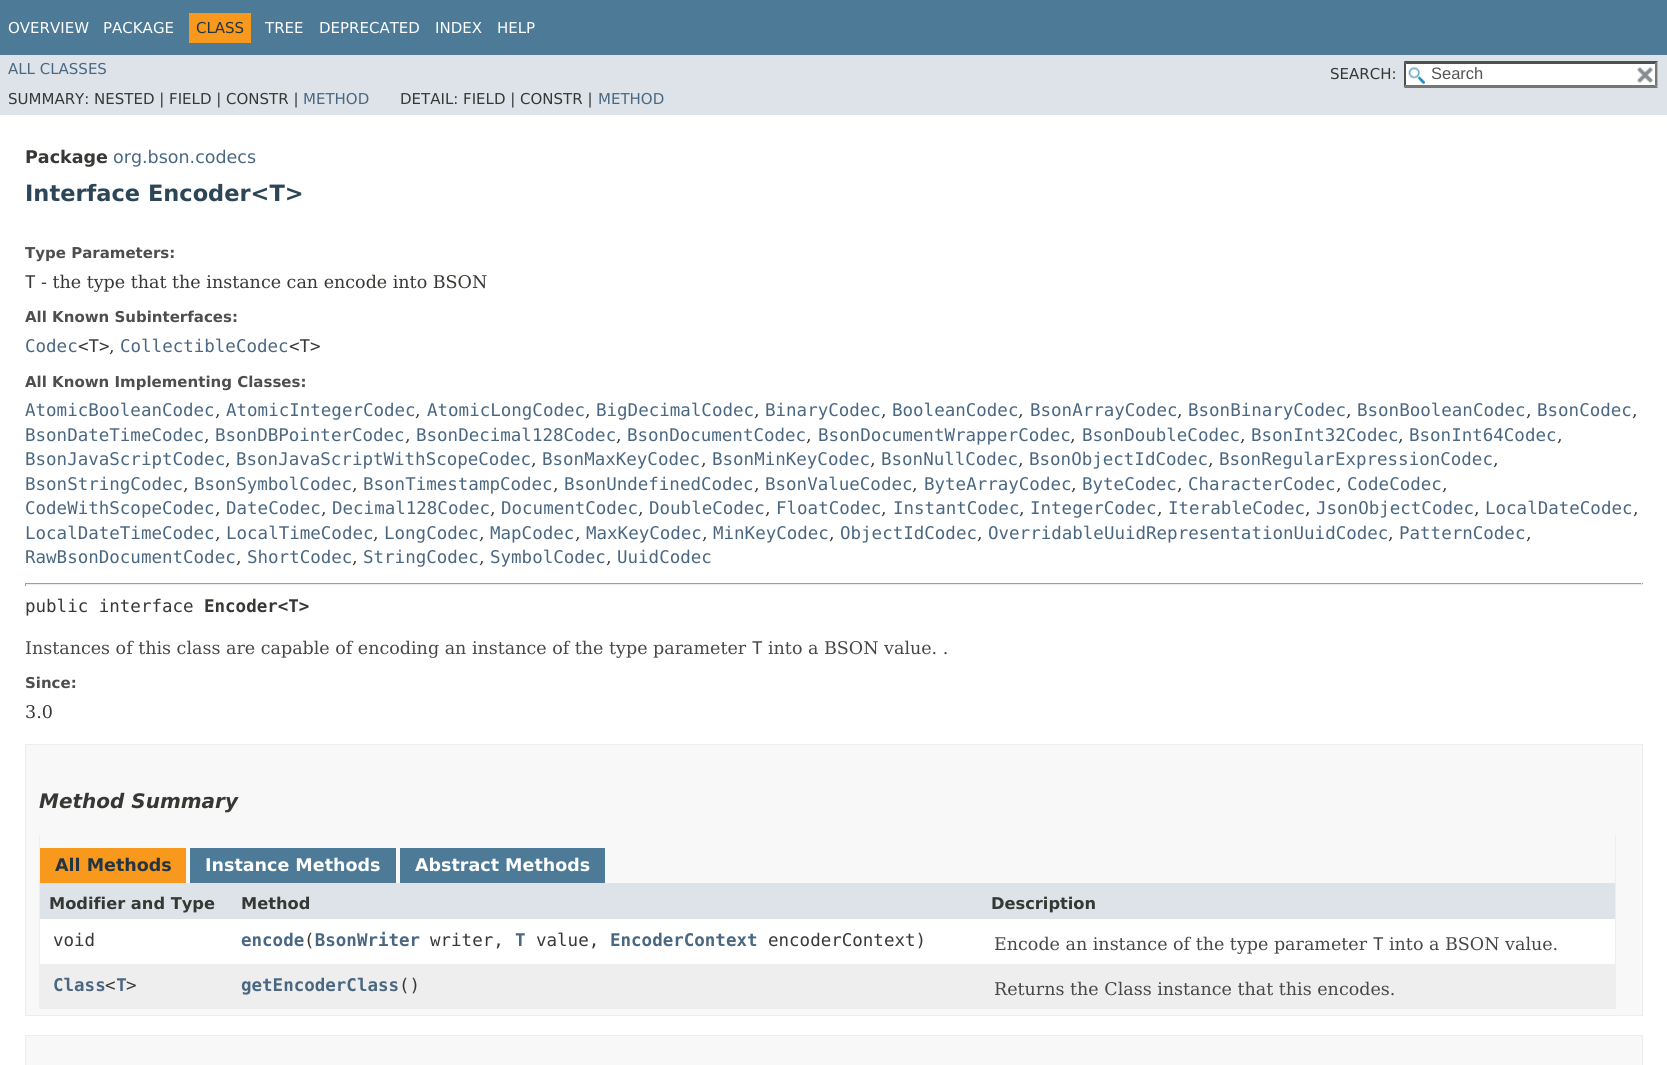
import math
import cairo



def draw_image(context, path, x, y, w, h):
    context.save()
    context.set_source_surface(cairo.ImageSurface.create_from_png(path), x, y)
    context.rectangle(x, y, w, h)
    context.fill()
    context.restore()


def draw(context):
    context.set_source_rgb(1, 1, 1)
    context.paint()
    context.set_source_rgb(77 / 255, 122 / 255, 151 / 255)
    context.rectangle(0, 0, 1667, 55)
    context.fill()
    context.set_source_rgb(248 / 255, 152 / 255, 29 / 255)
    context.rectangle(189, 13, 62, 30)
    context.fill()
    context.set_source_rgb(222 / 255, 227 / 255, 233 / 255)
    context.rectangle(0, 55, 1667, 60)
    context.fill()
    context.set_source_rgb(1, 1, 1)
    context.rectangle(1404, 61, 254, 27)
    context.fill()
    draw_image(context, "images/1.png", 1408, 67, 17, 17)
    context.set_source_rgb(79 / 255, 79 / 255, 79 / 255)
    context.new_path()
    context.move_to(1404, 61)
    context.line_to(1658, 61)
    context.line_to(1655, 64)
    context.line_to(1406, 64)
    context.close_path()
    context.fill()
    context.set_source_rgb(118 / 255, 118 / 255, 118 / 255)
    context.new_path()
    context.move_to(1657.5, 61)
    context.line_to(1657.5, 87.5)
    context.line_to(1655, 85)
    context.line_to(1655, 64)
    context.close_path()
    context.fill()
    context.new_path()
    context.move_to(1658, 88)
    context.line_to(1404, 88)
    context.line_to(1406, 85)
    context.line_to(1655, 85)
    context.close_path()
    context.fill()
    context.set_source_rgb(79 / 255, 79 / 255, 79 / 255)
    context.new_path()
    context.move_to(1404, 87.5)
    context.line_to(1404, 61)
    context.line_to(1406, 64)
    context.line_to(1406, 85)
    context.close_path()
    context.fill()
    draw_image(context, "images/2.png", 1637, 67, 16, 16)
    context.set_source_rgb(159 / 255, 159 / 255, 159 / 255)
    context.rectangle(25, 583, 1618, 1)
    context.fill()
    context.set_source_rgb(238 / 255, 238 / 255, 238 / 255)
    context.rectangle(1641, 583, 1, 3)
    context.fill()
    context.rectangle(25, 584, 1618, 1)
    context.fill()
    context.set_source_rgb(159 / 255, 159 / 255, 159 / 255)
    context.rectangle(25, 583, 1, 3)
    context.fill()
    context.set_source_rgb(248 / 255, 248 / 255, 248 / 255)
    context.rectangle(25.5, 744.5, 1617, 271)
    context.fill_preserve()
    context.set_source_rgb(237 / 255, 237 / 255, 237 / 255)
    context.set_line_width(1)
    context.stroke()
    context.set_source_rgb(238 / 255, 238 / 255, 238 / 255)
    context.rectangle(1615, 835, 1, 174)
    context.fill()
    context.rectangle(39, 1008, 1577, 1)
    context.fill()
    context.rectangle(39, 835, 1, 174)
    context.fill()
    context.set_source_rgb(248 / 255, 152 / 255, 29 / 255)
    context.rectangle(40, 848, 146, 35)
    context.fill()
    context.set_source_rgb(77 / 255, 122 / 255, 151 / 255)
    context.rectangle(190, 848, 206, 35)
    context.fill()
    context.rectangle(400, 848, 205, 35)
    context.fill()
    context.set_source_rgb(222 / 255, 227 / 255, 233 / 255)
    context.rectangle(40, 883, 1575, 36)
    context.fill()
    context.set_source_rgb(1, 1, 1)
    context.rectangle(40, 919, 1575, 45)
    context.fill()
    context.set_source_rgb(238 / 255, 238 / 255, 239 / 255)
    context.rectangle(40, 964, 1575, 44)
    context.fill()
    context.set_source_rgb(248 / 255, 248 / 255, 248 / 255)
    context.rectangle(25.5, 1035.5, 1617, 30)
    context.fill_preserve()
    context.set_source_rgb(237 / 255, 237 / 255, 237 / 255)
    context.stroke()
    context.select_font_face("DejaVu Sans")
    context.set_font_size(15)
    context.set_source_rgb(1, 1, 1)
    context.move_to(8, 33)
    context.show_text("OVERVIEW")
    context.move_to(103, 33)
    context.show_text("PACKAGE")
    context.set_source_rgb(37 / 255, 52 / 255, 65 / 255)
    context.move_to(196, 33)
    context.show_text("CLASS")
    context.set_source_rgb(1, 1, 1)
    context.move_to(265, 33)
    context.show_text("TREE")
    context.move_to(319, 33)
    context.show_text("DEPRECATED")
    context.move_to(435, 33)
    context.show_text("INDEX")
    context.move_to(497, 33)
    context.show_text("HELP")
    context.set_source_rgb(74 / 255, 103 / 255, 130 / 255)
    context.move_to(8, 74)
    context.show_text("ALL CLASSES")
    context.set_source_rgb(53 / 255, 56 / 255, 51 / 255)
    context.move_to(1330, 79)
    context.show_text("SEARCH:")
    context.select_font_face("Liberation Sans")
    context.set_font_size(16.5)
    context.set_source_rgb(84 / 255, 84 / 255, 84 / 255)
    context.move_to(1431, 79)
    context.show_text("Search")
    context.select_font_face("DejaVu Sans")
    context.set_font_size(15)
    context.set_source_rgb(53 / 255, 56 / 255, 51 / 255)
    context.move_to(8, 104)
    context.show_text("SUMMARY: NESTED | FIELD | CONSTR |")
    context.set_source_rgb(74 / 255, 103 / 255, 130 / 255)
    context.move_to(303, 104)
    context.show_text("METHOD")
    context.set_source_rgb(53 / 255, 56 / 255, 51 / 255)
    context.move_to(400, 104)
    context.show_text("DETAIL: FIELD | CONSTR |")
    context.set_source_rgb(74 / 255, 103 / 255, 130 / 255)
    context.move_to(598, 104)
    context.show_text("METHOD")
    context.select_font_face("DejaVu Sans", cairo.FontSlant.NORMAL, cairo.FontWeight.BOLD)
    context.set_font_size(17.5)
    context.set_source_rgb(53 / 255, 56 / 255, 51 / 255)
    context.move_to(25, 163)
    context.show_text("Package")
    context.select_font_face("DejaVu Sans")
    context.set_source_rgb(74 / 255, 103 / 255, 130 / 255)
    context.move_to(113, 163)
    context.show_text("org.bson.codecs")
    context.select_font_face("DejaVu Sans", cairo.FontSlant.NORMAL, cairo.FontWeight.BOLD)
    context.set_font_size(22.5)
    context.set_source_rgb(44 / 255, 69 / 255, 87 / 255)
    context.move_to(25, 201)
    context.show_text("Interface Encoder<T>")
    context.set_font_size(15)
    context.set_source_rgb(78 / 255, 78 / 255, 78 / 255)
    context.move_to(25, 258)
    context.show_text("Type Parameters:")
    context.select_font_face("DejaVu Sans Mono")
    context.set_font_size(17.5)
    context.set_source_rgb(53 / 255, 56 / 255, 51 / 255)
    context.move_to(25, 288)
    context.show_text("T")
    context.select_font_face("DejaVu Serif")
    context.move_to(41, 288)
    context.show_text("- the type that the instance can encode into BSON")
    context.select_font_face("DejaVu Sans", cairo.FontSlant.NORMAL, cairo.FontWeight.BOLD)
    context.set_font_size(15)
    context.set_source_rgb(78 / 255, 78 / 255, 78 / 255)
    context.move_to(25, 322)
    context.show_text("All Known Subinterfaces:")
    context.select_font_face("DejaVu Sans Mono")
    context.set_font_size(17.5)
    context.set_source_rgb(74 / 255, 103 / 255, 130 / 255)
    context.move_to(25, 352)
    context.show_text("Codec")
    context.set_source_rgb(53 / 255, 56 / 255, 51 / 255)
    context.move_to(78, 352)
    context.show_text("<T>")
    context.set_source_rgb(74 / 255, 103 / 255, 130 / 255)
    context.move_to(120, 352)
    context.show_text("CollectibleCodec")
    context.set_source_rgb(53 / 255, 56 / 255, 51 / 255)
    context.move_to(289, 352)
    context.show_text("<T>")
    context.select_font_face("DejaVu Serif")
    context.move_to(109, 352)
    context.show_text(",")
    context.select_font_face("DejaVu Sans", cairo.FontSlant.NORMAL, cairo.FontWeight.BOLD)
    context.set_font_size(15)
    context.set_source_rgb(78 / 255, 78 / 255, 78 / 255)
    context.move_to(25, 387)
    context.show_text("All Known Implementing Classes:")
    context.select_font_face("DejaVu Sans Mono")
    context.set_font_size(17.5)
    context.set_source_rgb(74 / 255, 103 / 255, 130 / 255)
    context.move_to(25, 416)
    context.show_text("AtomicBooleanCodec")
    context.select_font_face("DejaVu Serif")
    context.set_source_rgb(53 / 255, 56 / 255, 51 / 255)
    context.move_to(215, 416)
    context.show_text(",")
    context.select_font_face("DejaVu Sans Mono")
    context.set_source_rgb(74 / 255, 103 / 255, 130 / 255)
    context.move_to(226, 416)
    context.show_text("AtomicIntegerCodec")
    context.select_font_face("DejaVu Serif")
    context.set_source_rgb(53 / 255, 56 / 255, 51 / 255)
    context.move_to(415, 416)
    context.show_text(",")
    context.select_font_face("DejaVu Sans Mono")
    context.set_source_rgb(74 / 255, 103 / 255, 130 / 255)
    context.move_to(427, 416)
    context.show_text("AtomicLongCodec")
    context.select_font_face("DejaVu Serif")
    context.set_source_rgb(53 / 255, 56 / 255, 51 / 255)
    context.move_to(585, 416)
    context.show_text(",")
    context.select_font_face("DejaVu Sans Mono")
    context.set_source_rgb(74 / 255, 103 / 255, 130 / 255)
    context.move_to(596, 416)
    context.show_text("BigDecimalCodec")
    context.select_font_face("DejaVu Serif")
    context.set_source_rgb(53 / 255, 56 / 255, 51 / 255)
    context.move_to(754, 416)
    context.show_text(",")
    context.select_font_face("DejaVu Sans Mono")
    context.set_source_rgb(74 / 255, 103 / 255, 130 / 255)
    context.move_to(765, 416)
    context.show_text("BinaryCodec")
    context.select_font_face("DejaVu Serif")
    context.set_source_rgb(53 / 255, 56 / 255, 51 / 255)
    context.move_to(881, 416)
    context.show_text(",")
    context.select_font_face("DejaVu Sans Mono")
    context.set_source_rgb(74 / 255, 103 / 255, 130 / 255)
    context.move_to(892, 416)
    context.show_text("BooleanCodec")
    context.select_font_face("DejaVu Serif")
    context.set_source_rgb(53 / 255, 56 / 255, 51 / 255)
    context.move_to(1018, 416)
    context.show_text(",")
    context.select_font_face("DejaVu Sans Mono")
    context.set_source_rgb(74 / 255, 103 / 255, 130 / 255)
    context.move_to(1030, 416)
    context.show_text("BsonArrayCodec")
    context.select_font_face("DejaVu Serif")
    context.set_source_rgb(53 / 255, 56 / 255, 51 / 255)
    context.move_to(1177, 416)
    context.show_text(",")
    context.select_font_face("DejaVu Sans Mono")
    context.set_source_rgb(74 / 255, 103 / 255, 130 / 255)
    context.move_to(1188, 416)
    context.show_text("BsonBinaryCodec")
    context.select_font_face("DejaVu Serif")
    context.set_source_rgb(53 / 255, 56 / 255, 51 / 255)
    context.move_to(1346, 416)
    context.show_text(",")
    context.select_font_face("DejaVu Sans Mono")
    context.set_source_rgb(74 / 255, 103 / 255, 130 / 255)
    context.move_to(1357, 416)
    context.show_text("BsonBooleanCodec")
    context.select_font_face("DejaVu Serif")
    context.set_source_rgb(53 / 255, 56 / 255, 51 / 255)
    context.move_to(1526, 416)
    context.show_text(",")
    context.select_font_face("DejaVu Sans Mono")
    context.set_source_rgb(74 / 255, 103 / 255, 130 / 255)
    context.move_to(1537, 416)
    context.show_text("BsonCodec")
    context.select_font_face("DejaVu Serif")
    context.set_source_rgb(53 / 255, 56 / 255, 51 / 255)
    context.move_to(1632, 416)
    context.show_text(",")
    context.select_font_face("DejaVu Sans Mono")
    context.set_source_rgb(74 / 255, 103 / 255, 130 / 255)
    context.move_to(25, 441)
    context.show_text("BsonDateTimeCodec")
    context.select_font_face("DejaVu Serif")
    context.set_source_rgb(53 / 255, 56 / 255, 51 / 255)
    context.move_to(204, 441)
    context.show_text(",")
    context.select_font_face("DejaVu Sans Mono")
    context.set_source_rgb(74 / 255, 103 / 255, 130 / 255)
    context.move_to(215, 441)
    context.show_text("BsonDBPointerCodec")
    context.select_font_face("DejaVu Serif")
    context.set_source_rgb(53 / 255, 56 / 255, 51 / 255)
    context.move_to(405, 441)
    context.show_text(",")
    context.select_font_face("DejaVu Sans Mono")
    context.set_source_rgb(74 / 255, 103 / 255, 130 / 255)
    context.move_to(416, 441)
    context.show_text("BsonDecimal128Codec")
    context.select_font_face("DejaVu Serif")
    context.set_source_rgb(53 / 255, 56 / 255, 51 / 255)
    context.move_to(616, 441)
    context.show_text(",")
    context.select_font_face("DejaVu Sans Mono")
    context.set_source_rgb(74 / 255, 103 / 255, 130 / 255)
    context.move_to(627, 441)
    context.show_text("BsonDocumentCodec")
    context.select_font_face("DejaVu Serif")
    context.set_source_rgb(53 / 255, 56 / 255, 51 / 255)
    context.move_to(806, 441)
    context.show_text(",")
    context.select_font_face("DejaVu Sans Mono")
    context.set_source_rgb(74 / 255, 103 / 255, 130 / 255)
    context.move_to(818, 441)
    context.show_text("BsonDocumentWrapperCodec")
    context.select_font_face("DejaVu Serif")
    context.set_source_rgb(53 / 255, 56 / 255, 51 / 255)
    context.move_to(1070, 441)
    context.show_text(",")
    context.select_font_face("DejaVu Sans Mono")
    context.set_source_rgb(74 / 255, 103 / 255, 130 / 255)
    context.move_to(1082, 441)
    context.show_text("BsonDoubleCodec")
    context.select_font_face("DejaVu Serif")
    context.set_source_rgb(53 / 255, 56 / 255, 51 / 255)
    context.move_to(1240, 441)
    context.show_text(",")
    context.select_font_face("DejaVu Sans Mono")
    context.set_source_rgb(74 / 255, 103 / 255, 130 / 255)
    context.move_to(1251, 441)
    context.show_text("BsonInt32Codec")
    context.select_font_face("DejaVu Serif")
    context.set_source_rgb(53 / 255, 56 / 255, 51 / 255)
    context.move_to(1398, 441)
    context.show_text(",")
    context.select_font_face("DejaVu Sans Mono")
    context.set_source_rgb(74 / 255, 103 / 255, 130 / 255)
    context.move_to(1409, 441)
    context.show_text("BsonInt64Codec")
    context.select_font_face("DejaVu Serif")
    context.set_source_rgb(53 / 255, 56 / 255, 51 / 255)
    context.move_to(1557, 441)
    context.show_text(",")
    context.select_font_face("DejaVu Sans Mono")
    context.set_source_rgb(74 / 255, 103 / 255, 130 / 255)
    context.move_to(25, 465)
    context.show_text("BsonJavaScriptCodec")
    context.select_font_face("DejaVu Serif")
    context.set_source_rgb(53 / 255, 56 / 255, 51 / 255)
    context.move_to(225, 465)
    context.show_text(",")
    context.select_font_face("DejaVu Sans Mono")
    context.set_source_rgb(74 / 255, 103 / 255, 130 / 255)
    context.move_to(236, 465)
    context.show_text("BsonJavaScriptWithScopeCodec")
    context.select_font_face("DejaVu Serif")
    context.set_source_rgb(53 / 255, 56 / 255, 51 / 255)
    context.move_to(531, 465)
    context.show_text(",")
    context.select_font_face("DejaVu Sans Mono")
    context.set_source_rgb(74 / 255, 103 / 255, 130 / 255)
    context.move_to(542, 465)
    context.show_text("BsonMaxKeyCodec")
    context.select_font_face("DejaVu Serif")
    context.set_source_rgb(53 / 255, 56 / 255, 51 / 255)
    context.move_to(701, 465)
    context.show_text(",")
    context.select_font_face("DejaVu Sans Mono")
    context.set_source_rgb(74 / 255, 103 / 255, 130 / 255)
    context.move_to(712, 465)
    context.show_text("BsonMinKeyCodec")
    context.select_font_face("DejaVu Serif")
    context.set_source_rgb(53 / 255, 56 / 255, 51 / 255)
    context.move_to(870, 465)
    context.show_text(",")
    context.select_font_face("DejaVu Sans Mono")
    context.set_source_rgb(74 / 255, 103 / 255, 130 / 255)
    context.move_to(881, 465)
    context.show_text("BsonNullCodec")
    context.select_font_face("DejaVu Serif")
    context.set_source_rgb(53 / 255, 56 / 255, 51 / 255)
    context.move_to(1018, 465)
    context.show_text(",")
    context.select_font_face("DejaVu Sans Mono")
    context.set_source_rgb(74 / 255, 103 / 255, 130 / 255)
    context.move_to(1029, 465)
    context.show_text("BsonObjectIdCodec")
    context.select_font_face("DejaVu Serif")
    context.set_source_rgb(53 / 255, 56 / 255, 51 / 255)
    context.move_to(1208, 465)
    context.show_text(",")
    context.select_font_face("DejaVu Sans Mono")
    context.set_source_rgb(74 / 255, 103 / 255, 130 / 255)
    context.move_to(1219, 465)
    context.show_text("BsonRegularExpressionCodec")
    context.select_font_face("DejaVu Serif")
    context.set_source_rgb(53 / 255, 56 / 255, 51 / 255)
    context.move_to(1493, 465)
    context.show_text(",")
    context.select_font_face("DejaVu Sans Mono")
    context.set_source_rgb(74 / 255, 103 / 255, 130 / 255)
    context.move_to(25, 490)
    context.show_text("BsonStringCodec")
    context.select_font_face("DejaVu Serif")
    context.set_source_rgb(53 / 255, 56 / 255, 51 / 255)
    context.move_to(183, 490)
    context.show_text(",")
    context.select_font_face("DejaVu Sans Mono")
    context.set_source_rgb(74 / 255, 103 / 255, 130 / 255)
    context.move_to(194, 490)
    context.show_text("BsonSymbolCodec")
    context.select_font_face("DejaVu Serif")
    context.set_source_rgb(53 / 255, 56 / 255, 51 / 255)
    context.move_to(352, 490)
    context.show_text(",")
    context.select_font_face("DejaVu Sans Mono")
    context.set_source_rgb(74 / 255, 103 / 255, 130 / 255)
    context.move_to(363, 490)
    context.show_text("BsonTimestampCodec")
    context.select_font_face("DejaVu Serif")
    context.set_source_rgb(53 / 255, 56 / 255, 51 / 255)
    context.move_to(553, 490)
    context.show_text(",")
    context.select_font_face("DejaVu Sans Mono")
    context.set_source_rgb(74 / 255, 103 / 255, 130 / 255)
    context.move_to(564, 490)
    context.show_text("BsonUndefinedCodec")
    context.select_font_face("DejaVu Serif")
    context.set_source_rgb(53 / 255, 56 / 255, 51 / 255)
    context.move_to(754, 490)
    context.show_text(",")
    context.select_font_face("DejaVu Sans Mono")
    context.set_source_rgb(74 / 255, 103 / 255, 130 / 255)
    context.move_to(765, 490)
    context.show_text("BsonValueCodec")
    context.select_font_face("DejaVu Serif")
    context.set_source_rgb(53 / 255, 56 / 255, 51 / 255)
    context.move_to(912, 490)
    context.show_text(",")
    context.select_font_face("DejaVu Sans Mono")
    context.set_source_rgb(74 / 255, 103 / 255, 130 / 255)
    context.move_to(924, 490)
    context.show_text("ByteArrayCodec")
    context.select_font_face("DejaVu Serif")
    context.set_source_rgb(53 / 255, 56 / 255, 51 / 255)
    context.move_to(1071, 490)
    context.show_text(",")
    context.select_font_face("DejaVu Sans Mono")
    context.set_source_rgb(74 / 255, 103 / 255, 130 / 255)
    context.move_to(1082, 490)
    context.show_text("ByteCodec")
    context.select_font_face("DejaVu Serif")
    context.set_source_rgb(53 / 255, 56 / 255, 51 / 255)
    context.move_to(1177, 490)
    context.show_text(",")
    context.select_font_face("DejaVu Sans Mono")
    context.set_source_rgb(74 / 255, 103 / 255, 130 / 255)
    context.move_to(1188, 490)
    context.show_text("CharacterCodec")
    context.select_font_face("DejaVu Serif")
    context.set_source_rgb(53 / 255, 56 / 255, 51 / 255)
    context.move_to(1336, 490)
    context.show_text(",")
    context.select_font_face("DejaVu Sans Mono")
    context.set_source_rgb(74 / 255, 103 / 255, 130 / 255)
    context.move_to(1347, 490)
    context.show_text("CodeCodec")
    context.select_font_face("DejaVu Serif")
    context.set_source_rgb(53 / 255, 56 / 255, 51 / 255)
    context.move_to(1442, 490)
    context.show_text(",")
    context.select_font_face("DejaVu Sans Mono")
    context.set_source_rgb(74 / 255, 103 / 255, 130 / 255)
    context.move_to(25, 514)
    context.show_text("CodeWithScopeCodec")
    context.select_font_face("DejaVu Serif")
    context.set_source_rgb(53 / 255, 56 / 255, 51 / 255)
    context.move_to(215, 514)
    context.show_text(",")
    context.select_font_face("DejaVu Sans Mono")
    context.set_source_rgb(74 / 255, 103 / 255, 130 / 255)
    context.move_to(226, 514)
    context.show_text("DateCodec")
    context.select_font_face("DejaVu Serif")
    context.set_source_rgb(53 / 255, 56 / 255, 51 / 255)
    context.move_to(321, 514)
    context.show_text(",")
    context.select_font_face("DejaVu Sans Mono")
    context.set_source_rgb(74 / 255, 103 / 255, 130 / 255)
    context.move_to(332, 514)
    context.show_text("Decimal128Codec")
    context.select_font_face("DejaVu Serif")
    context.set_source_rgb(53 / 255, 56 / 255, 51 / 255)
    context.move_to(490, 514)
    context.show_text(",")
    context.select_font_face("DejaVu Sans Mono")
    context.set_source_rgb(74 / 255, 103 / 255, 130 / 255)
    context.move_to(501, 514)
    context.show_text("DocumentCodec")
    context.select_font_face("DejaVu Serif")
    context.set_source_rgb(53 / 255, 56 / 255, 51 / 255)
    context.move_to(638, 514)
    context.show_text(",")
    context.select_font_face("DejaVu Sans Mono")
    context.set_source_rgb(74 / 255, 103 / 255, 130 / 255)
    context.move_to(649, 514)
    context.show_text("DoubleCodec")
    context.select_font_face("DejaVu Serif")
    context.set_source_rgb(53 / 255, 56 / 255, 51 / 255)
    context.move_to(765, 514)
    context.show_text(",")
    context.select_font_face("DejaVu Sans Mono")
    context.set_source_rgb(74 / 255, 103 / 255, 130 / 255)
    context.move_to(776, 514)
    context.show_text("FloatCodec")
    context.select_font_face("DejaVu Serif")
    context.set_source_rgb(53 / 255, 56 / 255, 51 / 255)
    context.move_to(881, 514)
    context.show_text(",")
    context.select_font_face("DejaVu Sans Mono")
    context.set_source_rgb(74 / 255, 103 / 255, 130 / 255)
    context.move_to(893, 514)
    context.show_text("InstantCodec")
    context.select_font_face("DejaVu Serif")
    context.set_source_rgb(53 / 255, 56 / 255, 51 / 255)
    context.move_to(1019, 514)
    context.show_text(",")
    context.select_font_face("DejaVu Sans Mono")
    context.set_source_rgb(74 / 255, 103 / 255, 130 / 255)
    context.move_to(1030, 514)
    context.show_text("IntegerCodec")
    context.select_font_face("DejaVu Serif")
    context.set_source_rgb(53 / 255, 56 / 255, 51 / 255)
    context.move_to(1157, 514)
    context.show_text(",")
    context.select_font_face("DejaVu Sans Mono")
    context.set_source_rgb(74 / 255, 103 / 255, 130 / 255)
    context.move_to(1168, 514)
    context.show_text("IterableCodec")
    context.select_font_face("DejaVu Serif")
    context.set_source_rgb(53 / 255, 56 / 255, 51 / 255)
    context.move_to(1305, 514)
    context.show_text(",")
    context.select_font_face("DejaVu Sans Mono")
    context.set_source_rgb(74 / 255, 103 / 255, 130 / 255)
    context.move_to(1316, 514)
    context.show_text("JsonObjectCodec")
    context.select_font_face("DejaVu Serif")
    context.set_source_rgb(53 / 255, 56 / 255, 51 / 255)
    context.move_to(1474, 514)
    context.show_text(",")
    context.select_font_face("DejaVu Sans Mono")
    context.set_source_rgb(74 / 255, 103 / 255, 130 / 255)
    context.move_to(1485, 514)
    context.show_text("LocalDateCodec")
    context.select_font_face("DejaVu Serif")
    context.set_source_rgb(53 / 255, 56 / 255, 51 / 255)
    context.move_to(1633, 514)
    context.show_text(",")
    context.select_font_face("DejaVu Sans Mono")
    context.set_source_rgb(74 / 255, 103 / 255, 130 / 255)
    context.move_to(25, 539)
    context.show_text("LocalDateTimeCodec")
    context.select_font_face("DejaVu Serif")
    context.set_source_rgb(53 / 255, 56 / 255, 51 / 255)
    context.move_to(215, 539)
    context.show_text(",")
    context.select_font_face("DejaVu Sans Mono")
    context.set_source_rgb(74 / 255, 103 / 255, 130 / 255)
    context.move_to(226, 539)
    context.show_text("LocalTimeCodec")
    context.select_font_face("DejaVu Serif")
    context.set_source_rgb(53 / 255, 56 / 255, 51 / 255)
    context.move_to(373, 539)
    context.show_text(",")
    context.select_font_face("DejaVu Sans Mono")
    context.set_source_rgb(74 / 255, 103 / 255, 130 / 255)
    context.move_to(384, 539)
    context.show_text("LongCodec")
    context.select_font_face("DejaVu Serif")
    context.set_source_rgb(53 / 255, 56 / 255, 51 / 255)
    context.move_to(479, 539)
    context.show_text(",")
    context.select_font_face("DejaVu Sans Mono")
    context.set_source_rgb(74 / 255, 103 / 255, 130 / 255)
    context.move_to(490, 539)
    context.show_text("MapCodec")
    context.select_font_face("DejaVu Serif")
    context.set_source_rgb(53 / 255, 56 / 255, 51 / 255)
    context.move_to(575, 539)
    context.show_text(",")
    context.select_font_face("DejaVu Sans Mono")
    context.set_source_rgb(74 / 255, 103 / 255, 130 / 255)
    context.move_to(586, 539)
    context.show_text("MaxKeyCodec")
    context.select_font_face("DejaVu Serif")
    context.set_source_rgb(53 / 255, 56 / 255, 51 / 255)
    context.move_to(702, 539)
    context.show_text(",")
    context.select_font_face("DejaVu Sans Mono")
    context.set_source_rgb(74 / 255, 103 / 255, 130 / 255)
    context.move_to(713, 539)
    context.show_text("MinKeyCodec")
    context.select_font_face("DejaVu Serif")
    context.set_source_rgb(53 / 255, 56 / 255, 51 / 255)
    context.move_to(829, 539)
    context.show_text(",")
    context.select_font_face("DejaVu Sans Mono")
    context.set_source_rgb(74 / 255, 103 / 255, 130 / 255)
    context.move_to(840, 539)
    context.show_text("ObjectIdCodec")
    context.select_font_face("DejaVu Serif")
    context.set_source_rgb(53 / 255, 56 / 255, 51 / 255)
    context.move_to(977, 539)
    context.show_text(",")
    context.select_font_face("DejaVu Sans Mono")
    context.set_source_rgb(74 / 255, 103 / 255, 130 / 255)
    context.move_to(988, 539)
    context.show_text("OverridableUuidRepresentationUuidCodec")
    context.select_font_face("DejaVu Serif")
    context.set_source_rgb(53 / 255, 56 / 255, 51 / 255)
    context.move_to(1388, 539)
    context.show_text(",")
    context.select_font_face("DejaVu Sans Mono")
    context.set_source_rgb(74 / 255, 103 / 255, 130 / 255)
    context.move_to(1399, 539)
    context.show_text("PatternCodec")
    context.select_font_face("DejaVu Serif")
    context.set_source_rgb(53 / 255, 56 / 255, 51 / 255)
    context.move_to(1526, 539)
    context.show_text(",")
    context.select_font_face("DejaVu Sans Mono")
    context.set_source_rgb(74 / 255, 103 / 255, 130 / 255)
    context.move_to(25, 563)
    context.show_text("RawBsonDocumentCodec")
    context.select_font_face("DejaVu Serif")
    context.set_source_rgb(53 / 255, 56 / 255, 51 / 255)
    context.move_to(236, 563)
    context.show_text(",")
    context.select_font_face("DejaVu Sans Mono")
    context.set_source_rgb(74 / 255, 103 / 255, 130 / 255)
    context.move_to(247, 563)
    context.show_text("ShortCodec")
    context.select_font_face("DejaVu Serif")
    context.set_source_rgb(53 / 255, 56 / 255, 51 / 255)
    context.move_to(352, 563)
    context.show_text(",")
    context.select_font_face("DejaVu Sans Mono")
    context.set_source_rgb(74 / 255, 103 / 255, 130 / 255)
    context.move_to(363, 563)
    context.show_text("StringCodec")
    context.select_font_face("DejaVu Serif")
    context.set_source_rgb(53 / 255, 56 / 255, 51 / 255)
    context.move_to(479, 563)
    context.show_text(",")
    context.select_font_face("DejaVu Sans Mono")
    context.set_source_rgb(74 / 255, 103 / 255, 130 / 255)
    context.move_to(490, 563)
    context.show_text("SymbolCodec")
    context.select_font_face("DejaVu Serif")
    context.set_source_rgb(53 / 255, 56 / 255, 51 / 255)
    context.move_to(606, 563)
    context.show_text(",")
    context.select_font_face("DejaVu Sans Mono")
    context.set_source_rgb(74 / 255, 103 / 255, 130 / 255)
    context.move_to(617, 563)
    context.show_text("UuidCodec")
    context.set_source_rgb(53 / 255, 56 / 255, 51 / 255)
    context.move_to(25, 612)
    context.show_text("public interface")
    context.select_font_face("DejaVu Sans Mono", cairo.FontSlant.NORMAL, cairo.FontWeight.BOLD)
    context.move_to(204, 612)
    context.show_text("Encoder<T>")
    context.select_font_face("DejaVu Serif")
    context.set_source_rgb(71 / 255, 71 / 255, 71 / 255)
    context.move_to(25, 654)
    context.show_text("Instances of this class are capable of encoding an instance of the type parameter")
    context.select_font_face("DejaVu Sans Mono")
    context.move_to(752, 654)
    context.show_text("T")
    context.select_font_face("DejaVu Serif")
    context.move_to(768, 654)
    context.show_text("into a BSON value. .")
    context.select_font_face("DejaVu Sans", cairo.FontSlant.NORMAL, cairo.FontWeight.BOLD)
    context.set_font_size(15)
    context.set_source_rgb(78 / 255, 78 / 255, 78 / 255)
    context.move_to(25, 688)
    context.show_text("Since:")
    context.select_font_face("DejaVu Serif")
    context.set_font_size(17.5)
    context.set_source_rgb(53 / 255, 56 / 255, 51 / 255)
    context.move_to(25, 718)
    context.show_text("3.0")
    context.select_font_face("DejaVu Sans", cairo.FontSlant.ITALIC, cairo.FontWeight.BOLD)
    context.set_font_size(20)
    context.move_to(39, 808)
    context.show_text("Method Summary")
    context.select_font_face("DejaVu Sans", cairo.FontSlant.NORMAL, cairo.FontWeight.BOLD)
    context.set_font_size(17.5)
    context.set_source_rgb(37 / 255, 52 / 255, 65 / 255)
    context.move_to(55, 871)
    context.show_text("All Methods")
    context.set_source_rgb(1, 1, 1)
    context.move_to(205, 871)
    context.show_text("Instance Methods")
    context.move_to(415, 871)
    context.show_text("Abstract Methods")
    context.set_font_size(16.25)
    context.set_source_rgb(53 / 255, 56 / 255, 51 / 255)
    context.move_to(49, 909)
    context.show_text("Modifier and Type")
    context.move_to(241, 909)
    context.show_text("Method")
    context.move_to(991, 909)
    context.show_text("Description")
    context.select_font_face("DejaVu Sans Mono")
    context.set_font_size(17.5)
    context.move_to(53, 946)
    context.show_text("void")
    context.select_font_face("DejaVu Sans Mono", cairo.FontSlant.NORMAL, cairo.FontWeight.BOLD)
    context.set_source_rgb(74 / 255, 103 / 255, 130 / 255)
    context.move_to(241, 946)
    context.show_text("encode BsonWriter")
    context.select_font_face("DejaVu Sans Mono")
    context.set_source_rgb(53 / 255, 56 / 255, 51 / 255)
    context.move_to(304, 946)
    context.show_text("(")
    context.move_to(430, 946)
    context.show_text("writer,")
    context.select_font_face("DejaVu Sans Mono", cairo.FontSlant.NORMAL, cairo.FontWeight.BOLD)
    context.set_source_rgb(74 / 255, 103 / 255, 130 / 255)
    context.move_to(515, 946)
    context.show_text("T")
    context.select_font_face("DejaVu Sans Mono")
    context.set_source_rgb(53 / 255, 56 / 255, 51 / 255)
    context.move_to(536, 946)
    context.show_text("value,")
    context.select_font_face("DejaVu Sans Mono", cairo.FontSlant.NORMAL, cairo.FontWeight.BOLD)
    context.set_source_rgb(74 / 255, 103 / 255, 130 / 255)
    context.move_to(610, 946)
    context.show_text("EncoderContext")
    context.select_font_face("DejaVu Sans Mono")
    context.set_source_rgb(53 / 255, 56 / 255, 51 / 255)
    context.move_to(768, 946)
    context.show_text("encoderContext)")
    context.select_font_face("DejaVu Serif")
    context.set_source_rgb(71 / 255, 71 / 255, 71 / 255)
    context.move_to(994, 950)
    context.show_text("Encode an instance of the type parameter")
    context.select_font_face("DejaVu Sans Mono")
    context.move_to(1373, 950)
    context.show_text("T")
    context.select_font_face("DejaVu Serif")
    context.move_to(1389, 950)
    context.show_text("into a BSON value.")
    context.select_font_face("DejaVu Sans Mono", cairo.FontSlant.NORMAL, cairo.FontWeight.BOLD)
    context.set_source_rgb(74 / 255, 103 / 255, 130 / 255)
    context.move_to(53, 991)
    context.show_text("Class T")
    context.select_font_face("DejaVu Sans Mono")
    context.set_source_rgb(53 / 255, 56 / 255, 51 / 255)
    context.move_to(105, 991)
    context.show_text("< >")
    context.select_font_face("DejaVu Sans Mono", cairo.FontSlant.NORMAL, cairo.FontWeight.BOLD)
    context.set_source_rgb(74 / 255, 103 / 255, 130 / 255)
    context.move_to(241, 991)
    context.show_text("getEncoderClass")
    context.select_font_face("DejaVu Sans Mono")
    context.set_source_rgb(53 / 255, 56 / 255, 51 / 255)
    context.move_to(399, 991)
    context.show_text("()")
    context.select_font_face("DejaVu Serif")
    context.set_source_rgb(71 / 255, 71 / 255, 71 / 255)
    context.move_to(994, 995)
    context.show_text("Returns the Class instance that this encodes.")


surface = cairo.ImageSurface(cairo.Format.RGB24, 1667, 1065)
context = cairo.Context(surface)
options = cairo.FontOptions()
options.set_hint_metrics(cairo.HintMetrics.OFF)
options.set_hint_style(cairo.HintStyle.NONE)
context.set_font_options(options)
context.set_miter_limit(4)
draw(context)
surface.write_to_png("out.png")
